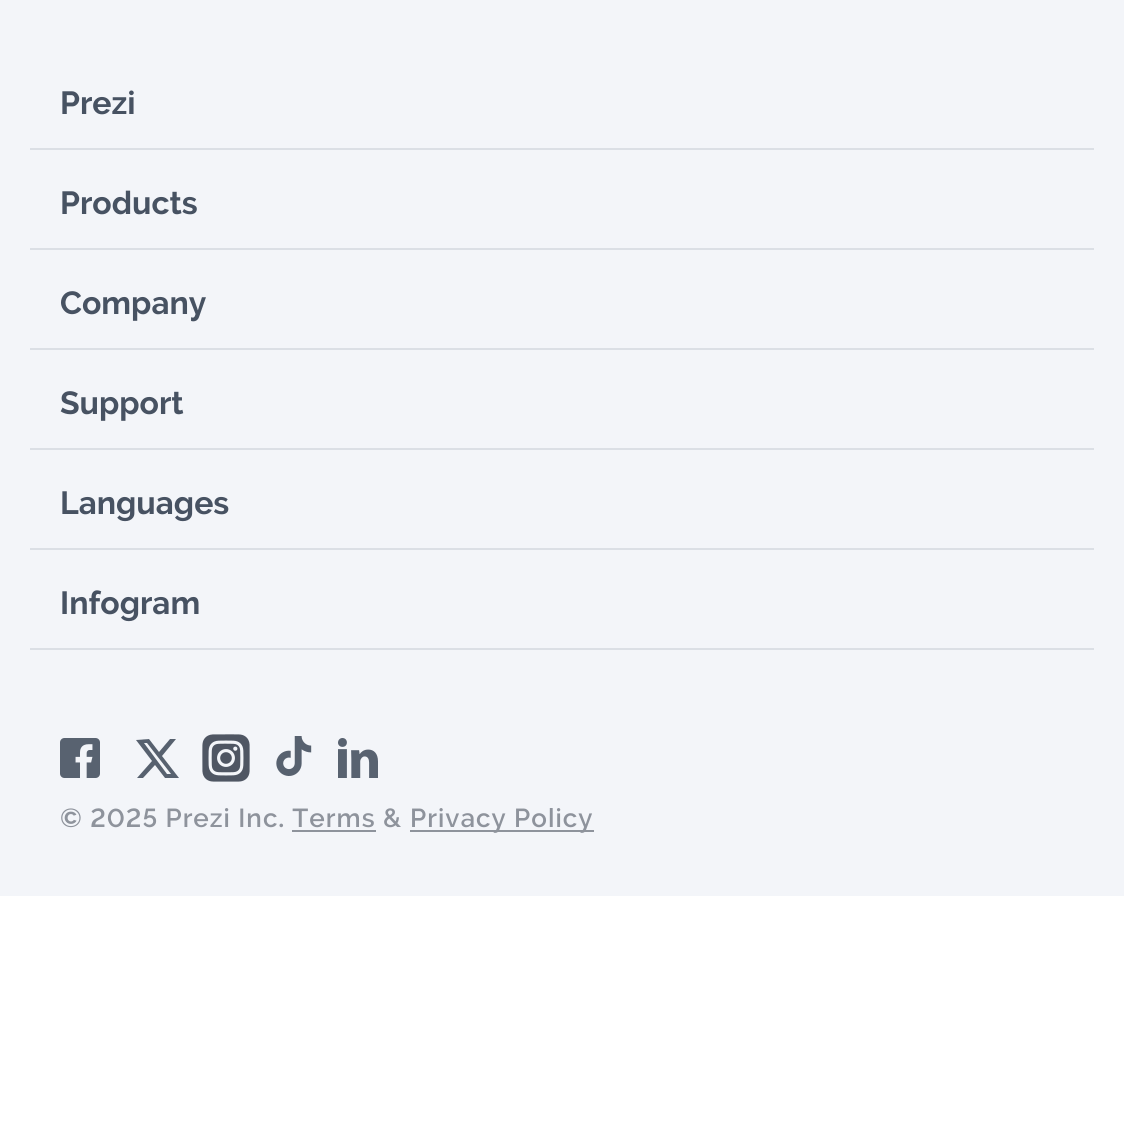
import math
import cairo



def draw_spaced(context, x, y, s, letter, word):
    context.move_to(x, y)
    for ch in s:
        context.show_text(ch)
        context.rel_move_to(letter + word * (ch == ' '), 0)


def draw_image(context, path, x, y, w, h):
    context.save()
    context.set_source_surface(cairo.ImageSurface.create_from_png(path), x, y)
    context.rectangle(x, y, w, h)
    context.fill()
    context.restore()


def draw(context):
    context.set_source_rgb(1, 1, 1)
    context.paint()
    context.set_source_rgb(243 / 255, 245 / 255, 249 / 255)
    context.rectangle(0, 0, 1124, 896)
    context.fill()
    context.set_source_rgb(219 / 255, 223 / 255, 229 / 255)
    context.rectangle(30, 148, 1064, 2)
    context.fill()
    context.rectangle(30, 248, 1064, 2)
    context.fill()
    context.rectangle(30, 348, 1064, 2)
    context.fill()
    context.rectangle(30, 448, 1064, 2)
    context.fill()
    context.rectangle(30, 548, 1064, 2)
    context.fill()
    context.rectangle(30, 648, 1064, 2)
    context.fill()
    draw_image(context, "images/1.png", 60, 738, 40, 40)
    context.set_source_rgb(87 / 255, 97 / 255, 111 / 255)
    context.new_path()
    context.move_to(137, 778)
    context.line_to(152, 761)
    context.line_to(136, 740)
    context.line_to(149, 739)
    context.line_to(159, 752)
    context.line_to(170, 739)
    context.line_to(176, 739)
    context.line_to(162, 756)
    context.line_to(179, 778)
    context.line_to(165, 778)
    context.line_to(155, 765)
    context.line_to(143, 778)
    context.close_path()
    context.move_to(171, 774)
    context.line_to(147, 743)
    context.line_to(144, 743)
    context.line_to(167, 774)
    context.close_path()
    context.fill()
    draw_image(context, "images/2.png", 202, 734, 48, 48)
    draw_image(context, "images/3.png", 276, 736, 36, 40)
    draw_image(context, "images/4.png", 338, 738, 40, 40)
    context.set_source_rgb(142 / 255, 147 / 255, 156 / 255)
    context.rectangle(410, 830, 184, 2)
    context.fill()
    context.rectangle(292, 830, 84, 2)
    context.fill()
    context.select_font_face("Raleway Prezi", cairo.FontSlant.NORMAL, cairo.FontWeight.BOLD)
    context.set_font_size(32)
    context.set_source_rgb(71 / 255, 82 / 255, 98 / 255)
    context.move_to(60, 114)
    context.show_text("Prezi")
    context.move_to(60, 214)
    context.show_text("Products")
    context.move_to(60, 314)
    context.show_text("Company")
    context.move_to(60, 414)
    context.show_text("Support")
    context.move_to(60, 514)
    context.show_text("Languages")
    context.move_to(60, 614)
    context.show_text("Infogram")
    context.select_font_face("Raleway Prezi SemiBold")
    context.set_font_size(26)
    context.set_source_rgb(142 / 255, 147 / 255, 156 / 255)
    draw_spaced(context, 60, 827, "© 2025 Prezi Inc. Terms &", 1, 0)
    draw_spaced(context, 410, 827, "Privacy Policy", 1, 0)


surface = cairo.ImageSurface(cairo.Format.RGB24, 1124, 1124)
context = cairo.Context(surface)
options = cairo.FontOptions()
options.set_hint_metrics(cairo.HintMetrics.OFF)
options.set_hint_style(cairo.HintStyle.NONE)
context.set_font_options(options)
context.set_miter_limit(4)
draw(context)
surface.write_to_png("out.png")
